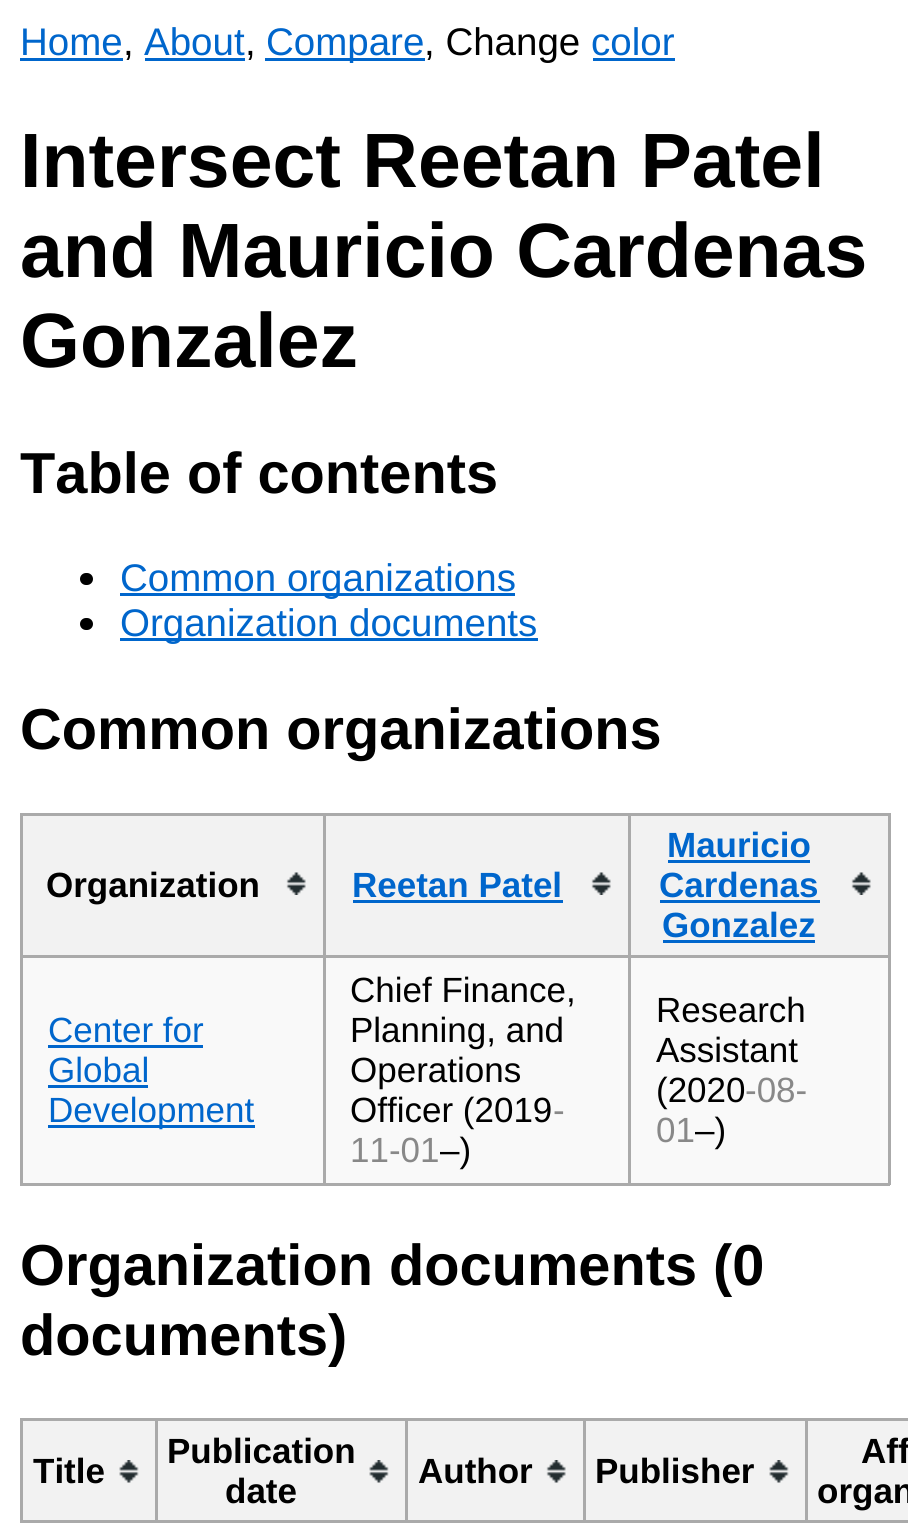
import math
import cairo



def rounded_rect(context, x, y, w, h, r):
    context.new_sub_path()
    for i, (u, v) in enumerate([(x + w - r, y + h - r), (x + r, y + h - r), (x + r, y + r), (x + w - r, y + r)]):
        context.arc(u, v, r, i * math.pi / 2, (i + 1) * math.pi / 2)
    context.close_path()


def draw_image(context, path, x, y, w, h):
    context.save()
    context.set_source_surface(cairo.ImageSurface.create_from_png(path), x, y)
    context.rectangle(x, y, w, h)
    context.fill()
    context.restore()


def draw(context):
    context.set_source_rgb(1, 1, 1)
    context.paint()
    context.set_source_rgb(0, 102 / 255, 204 / 255)
    context.rectangle(20, 58, 103, 3)
    context.fill()
    context.rectangle(145, 58, 100, 3)
    context.fill()
    context.rectangle(265, 58, 160, 3)
    context.fill()
    context.rectangle(593, 58, 82, 3)
    context.fill()
    context.set_source_rgb(0, 0, 0)
    rounded_rect(context, 80, 573, 13, 12, 6)
    context.fill()
    context.set_source_rgb(0, 102 / 255, 204 / 255)
    context.rectangle(120, 593, 395, 3)
    context.fill()
    context.set_source_rgb(0, 0, 0)
    rounded_rect(context, 80, 618, 13, 12, 6)
    context.fill()
    context.set_source_rgb(0, 102 / 255, 204 / 255)
    context.rectangle(120, 638, 418, 3)
    context.fill()
    context.set_source_rgb(249 / 255, 249 / 255, 249 / 255)
    context.rectangle(23, 958, 865, 225)
    context.fill()
    context.set_source_rgb(242 / 255, 242 / 255, 242 / 255)
    context.rectangle(23, 816, 300, 139)
    context.fill()
    draw_image(context, "images/1.png", 286, 872, 20, 23)
    context.set_source_rgb(170 / 255, 170 / 255, 170 / 255)
    context.rectangle(628, 813, 262, 3)
    context.fill()
    context.rectangle(628, 955, 262, 3)
    context.fill()
    context.rectangle(888, 955, 3, 230)
    context.fill()
    context.rectangle(628, 1183, 262, 3)
    context.fill()
    context.rectangle(628, 955, 3, 230)
    context.fill()
    context.rectangle(323, 955, 307, 3)
    context.fill()
    context.rectangle(628, 813, 3, 145)
    context.fill()
    context.rectangle(323, 813, 307, 3)
    context.fill()
    context.rectangle(323, 1183, 307, 3)
    context.fill()
    context.rectangle(323, 955, 3, 230)
    context.fill()
    context.rectangle(20, 955, 305, 3)
    context.fill()
    context.rectangle(323, 813, 3, 145)
    context.fill()
    context.rectangle(20, 813, 305, 3)
    context.fill()
    context.rectangle(20, 1183, 305, 3)
    context.fill()
    context.rectangle(20, 955, 3, 230)
    context.fill()
    context.rectangle(20, 813, 3, 145)
    context.fill()
    context.set_source_rgb(242 / 255, 242 / 255, 242 / 255)
    context.rectangle(326, 816, 302, 139)
    context.fill()
    draw_image(context, "images/2.png", 591, 872, 20, 23)
    context.set_source_rgb(0, 102 / 255, 204 / 255)
    context.rectangle(353, 900, 210, 3)
    context.fill()
    context.set_source_rgb(242 / 255, 242 / 255, 242 / 255)
    context.rectangle(631, 816, 257, 139)
    context.fill()
    draw_image(context, "images/2.png", 851, 872, 20, 23)
    context.set_source_rgb(170 / 255, 170 / 255, 170 / 255)
    context.rectangle(888, 813, 3, 145)
    context.fill()
    context.set_source_rgb(0, 102 / 255, 204 / 255)
    context.rectangle(668, 860, 142, 3)
    context.fill()
    context.rectangle(660, 900, 160, 3)
    context.fill()
    context.rectangle(663, 940, 152, 3)
    context.fill()
    context.rectangle(48, 1045, 155, 3)
    context.fill()
    context.rectangle(48, 1085, 100, 3)
    context.fill()
    context.rectangle(48, 1125, 207, 3)
    context.fill()
    context.set_source_rgb(242 / 255, 242 / 255, 242 / 255)
    context.rectangle(23, 1421, 132, 99)
    context.fill()
    draw_image(context, "images/3.png", 119, 1460, 20, 23)
    context.set_source_rgb(170 / 255, 170 / 255, 170 / 255)
    context.rectangle(805, 1418, 103, 3)
    context.fill()
    context.rectangle(805, 1520, 103, 3)
    context.fill()
    context.rectangle(805, 1418, 3, 105)
    context.fill()
    context.rectangle(583, 1418, 225, 3)
    context.fill()
    context.rectangle(583, 1520, 225, 3)
    context.fill()
    context.rectangle(583, 1418, 3, 105)
    context.fill()
    context.rectangle(405, 1418, 180, 3)
    context.fill()
    context.rectangle(405, 1520, 180, 3)
    context.fill()
    context.rectangle(405, 1418, 3, 105)
    context.fill()
    context.rectangle(155, 1418, 253, 3)
    context.fill()
    context.rectangle(155, 1520, 253, 3)
    context.fill()
    context.rectangle(155, 1418, 3, 105)
    context.fill()
    context.rectangle(20, 1418, 138, 3)
    context.fill()
    context.rectangle(20, 1520, 138, 3)
    context.fill()
    context.rectangle(20, 1418, 3, 105)
    context.fill()
    context.set_source_rgb(242 / 255, 242 / 255, 242 / 255)
    context.rectangle(158, 1421, 247, 99)
    context.fill()
    draw_image(context, "images/4.png", 369, 1460, 20, 23)
    context.rectangle(408, 1421, 175, 99)
    context.fill()
    draw_image(context, "images/5.png", 546, 1460, 20, 23)
    context.rectangle(586, 1421, 219, 99)
    context.fill()
    draw_image(context, "images/3.png", 769, 1460, 20, 23)
    context.rectangle(808, 1421, 100, 99)
    context.fill()
    context.select_font_face("Liberation Sans")
    context.set_font_size(38.5)
    context.set_source_rgb(0, 102 / 255, 204 / 255)
    context.move_to(20, 55)
    context.show_text("Home")
    context.set_source_rgb(0, 0, 0)
    context.move_to(123, 55)
    context.show_text(",")
    context.set_source_rgb(0, 102 / 255, 204 / 255)
    context.move_to(144, 55)
    context.show_text("About")
    context.set_source_rgb(0, 0, 0)
    context.move_to(245, 55)
    context.show_text(",")
    context.set_source_rgb(0, 102 / 255, 204 / 255)
    context.move_to(266, 55)
    context.show_text("Compare")
    context.set_source_rgb(0, 0, 0)
    context.move_to(424, 55)
    context.show_text(", Change")
    context.set_source_rgb(0, 102 / 255, 204 / 255)
    context.move_to(591, 55)
    context.show_text("color")
    context.select_font_face("Liberation Sans", cairo.FontSlant.NORMAL, cairo.FontWeight.BOLD)
    context.set_font_size(77)
    context.set_source_rgb(0, 0, 0)
    context.move_to(20, 187)
    context.show_text("Intersect Reetan Patel")
    context.move_to(20, 277)
    context.show_text("and Mauricio Cardenas")
    context.move_to(20, 367)
    context.show_text("Gonzalez")
    context.set_font_size(57.75)
    context.move_to(20, 493)
    context.show_text("Table of contents")
    context.select_font_face("Liberation Sans")
    context.set_font_size(38.5)
    context.set_source_rgb(0, 102 / 255, 204 / 255)
    context.move_to(120, 591)
    context.show_text("Common organizations")
    context.move_to(120, 636)
    context.show_text("Organization documents")
    context.select_font_face("Liberation Sans", cairo.FontSlant.NORMAL, cairo.FontWeight.BOLD)
    context.set_font_size(57.75)
    context.set_source_rgb(0, 0, 0)
    context.move_to(20, 749)
    context.show_text("Common organizations")
    context.set_font_size(35)
    context.move_to(46, 897)
    context.show_text("Organization")
    context.set_source_rgb(0, 102 / 255, 204 / 255)
    context.move_to(352, 897)
    context.show_text("Reetan Patel")
    context.move_to(667, 857)
    context.show_text("Mauricio")
    context.move_to(659, 897)
    context.show_text("Cardenas")
    context.move_to(662, 937)
    context.show_text("Gonzalez")
    context.select_font_face("Liberation Sans")
    context.move_to(48, 1042)
    context.show_text("Center for")
    context.move_to(48, 1082)
    context.show_text("Global")
    context.move_to(48, 1122)
    context.show_text("Development")
    context.set_source_rgb(0, 0, 0)
    context.move_to(350, 1002)
    context.show_text("Chief Finance,")
    context.move_to(350, 1042)
    context.show_text("Planning, and")
    context.move_to(350, 1082)
    context.show_text("Operations")
    context.move_to(350, 1122)
    context.show_text("Officer (2019")
    context.set_source_rgb(136 / 255, 136 / 255, 136 / 255)
    context.move_to(553, 1122)
    context.show_text("-")
    context.move_to(350, 1162)
    context.show_text("11-01")
    context.set_source_rgb(0, 0, 0)
    context.move_to(440, 1162)
    context.show_text("–)")
    context.move_to(656, 1022)
    context.show_text("Research")
    context.move_to(656, 1062)
    context.show_text("Assistant")
    context.move_to(656, 1102)
    context.show_text("(2020")
    context.set_source_rgb(136 / 255, 136 / 255, 136 / 255)
    context.move_to(745, 1102)
    context.show_text("-08-")
    context.move_to(656, 1142)
    context.show_text("01")
    context.set_source_rgb(0, 0, 0)
    context.move_to(695, 1142)
    context.show_text("–)")
    context.select_font_face("Liberation Sans", cairo.FontSlant.NORMAL, cairo.FontWeight.BOLD)
    context.set_font_size(57.75)
    context.move_to(20, 1285)
    context.show_text("Organization documents (0")
    context.move_to(20, 1355)
    context.show_text("documents)")
    context.set_font_size(35)
    context.move_to(33, 1483)
    context.show_text("Title")
    context.move_to(167, 1463)
    context.show_text("Publication")
    context.move_to(225, 1503)
    context.show_text("date")
    context.move_to(418, 1483)
    context.show_text("Author")
    context.move_to(595, 1483)
    context.show_text("Publisher")
    context.move_to(861, 1463)
    context.show_text("Aff")
    context.move_to(817, 1503)
    context.show_text("organ")


surface = cairo.ImageSurface(cairo.Format.RGB24, 908, 1538)
context = cairo.Context(surface)
options = cairo.FontOptions()
options.set_hint_metrics(cairo.HintMetrics.OFF)
options.set_hint_style(cairo.HintStyle.NONE)
context.set_font_options(options)
context.set_miter_limit(4)
draw(context)
surface.write_to_png("out.png")
